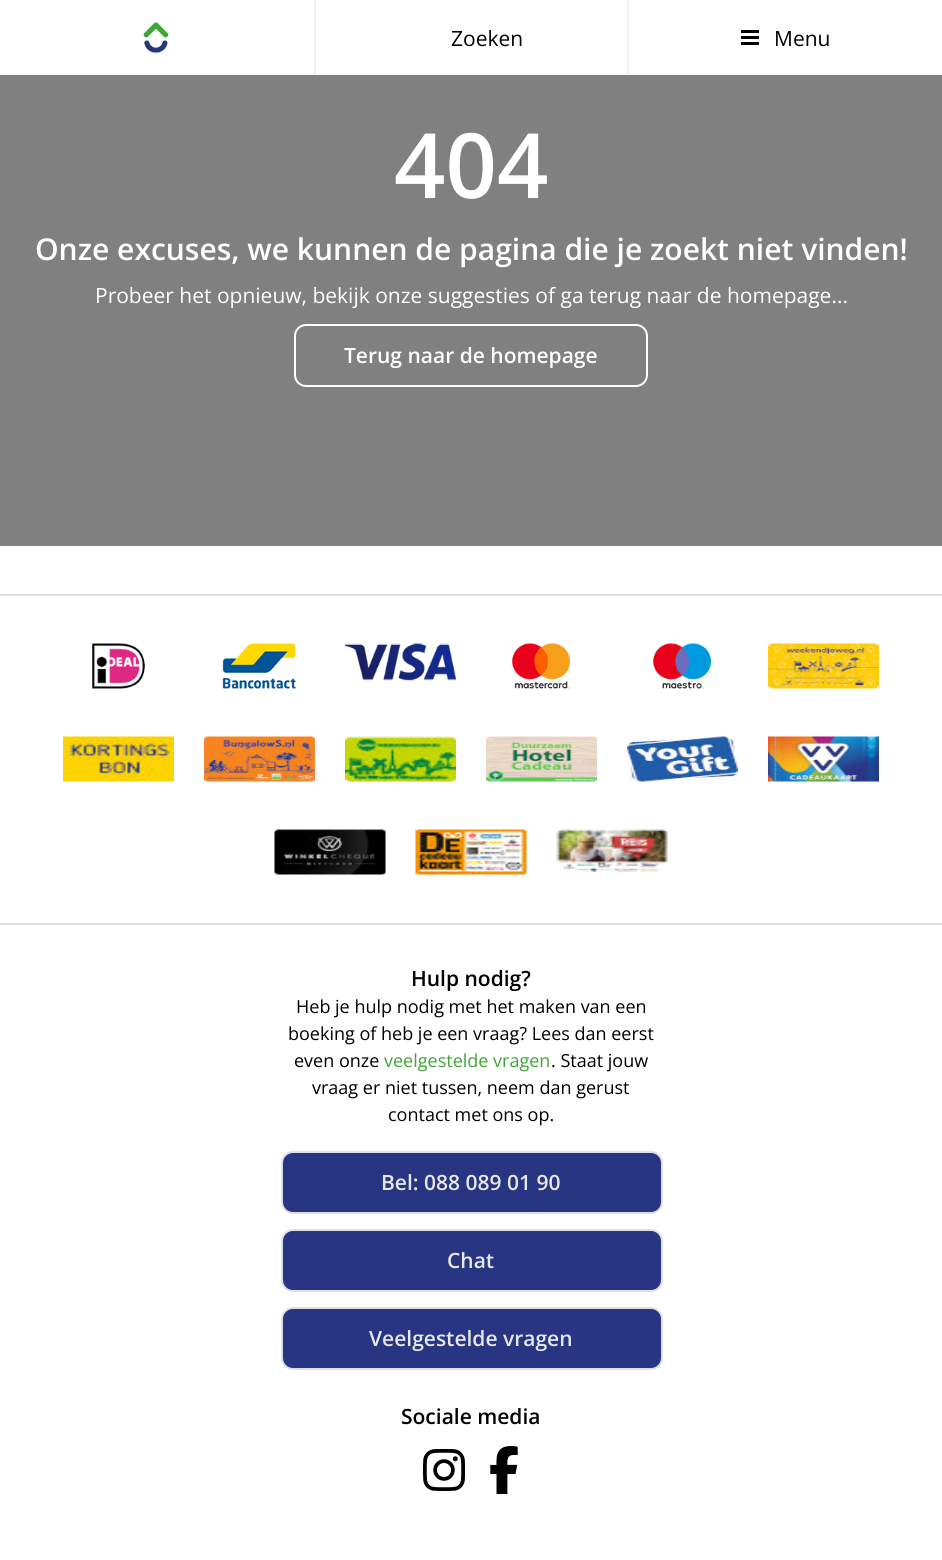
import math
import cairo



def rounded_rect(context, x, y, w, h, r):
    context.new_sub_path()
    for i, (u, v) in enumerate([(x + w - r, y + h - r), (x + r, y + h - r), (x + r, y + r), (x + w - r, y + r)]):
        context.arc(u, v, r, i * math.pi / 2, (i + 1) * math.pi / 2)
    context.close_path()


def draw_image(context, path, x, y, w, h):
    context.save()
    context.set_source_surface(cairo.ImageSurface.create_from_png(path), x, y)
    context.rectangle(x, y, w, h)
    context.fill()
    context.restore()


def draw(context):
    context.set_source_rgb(1, 1, 1)
    context.paint()
    context.set_source_rgb(242 / 255, 242 / 255, 242 / 255)
    context.rectangle(314, 0, 2, 75)
    context.fill()
    draw_image(context, "images/1.png", 143, 22, 26, 31)
    context.rectangle(627, 0, 2, 75)
    context.fill()
    context.set_source_rgb(0, 0, 0)
    context.rectangle(741, 30, 18, 3)
    context.fill()
    context.rectangle(741, 36, 18, 3)
    context.fill()
    context.rectangle(741, 42, 18, 3)
    context.fill()
    context.set_source_rgb(128 / 255, 128 / 255, 128 / 255)
    context.rectangle(0, 75, 942, 471)
    context.fill()
    rounded_rect(context, 295, 325, 352, 61, 11)
    context.set_source_rgb(1, 1, 1)
    context.stroke()
    context.set_source_rgb(224 / 255, 224 / 255, 224 / 255)
    context.rectangle(0, 594, 942, 2)
    context.fill()
    draw_image(context, "images/2.png", 92, 643, 53, 46)
    draw_image(context, "images/3.png", 222, 643, 74, 46)
    draw_image(context, "images/4.png", 345, 643, 111, 38)
    draw_image(context, "images/5.png", 512, 643, 58, 46)
    draw_image(context, "images/6.png", 653, 643, 58, 46)
    draw_image(context, "images/7.png", 768, 643, 111, 46)
    draw_image(context, "images/8.png", 63, 736, 111, 46)
    draw_image(context, "images/9.png", 204, 736, 111, 46)
    draw_image(context, "images/10.png", 345, 736, 111, 46)
    draw_image(context, "images/11.png", 486, 736, 111, 46)
    draw_image(context, "images/12.png", 627, 736, 111, 46)
    draw_image(context, "images/13.png", 768, 736, 111, 46)
    draw_image(context, "images/14.png", 274, 829, 112, 46)
    draw_image(context, "images/15.png", 415, 829, 112, 46)
    draw_image(context, "images/16.png", 556, 829, 112, 43)
    context.rectangle(0, 923, 942, 2)
    context.fill()
    context.set_source_rgb(40 / 255, 53 / 255, 131 / 255)
    rounded_rect(context, 282, 1152, 380, 61, 11)
    context.fill_preserve()
    context.set_source_rgb(224 / 255, 224 / 255, 224 / 255)
    context.stroke()
    context.set_source_rgb(40 / 255, 53 / 255, 131 / 255)
    rounded_rect(context, 282, 1230, 380, 61, 11)
    context.fill_preserve()
    context.set_source_rgb(224 / 255, 224 / 255, 224 / 255)
    context.stroke()
    context.set_source_rgb(40 / 255, 53 / 255, 131 / 255)
    rounded_rect(context, 282, 1308, 380, 61, 11)
    context.fill_preserve()
    context.set_source_rgb(224 / 255, 224 / 255, 224 / 255)
    context.stroke()
    draw_image(context, "images/17.png", 423, 1449, 42, 42)
    draw_image(context, "images/18.png", 490, 1446, 28, 48)
    context.select_font_face("Open Sans")
    context.set_font_size(21)
    context.set_source_rgb(0, 0, 0)
    context.move_to(451, 46)
    context.show_text("Zoeken")
    context.move_to(774, 46)
    context.show_text("Menu")
    context.select_font_face("Open Sans SemiBold")
    context.set_font_size(90)
    context.set_source_rgb(1, 1, 1)
    context.move_to(394, 198)
    context.show_text("404")
    context.set_font_size(30)
    context.move_to(35, 260)
    context.show_text("Onze excuses, we kunnen de pagina die je zoekt niet vinden!")
    context.select_font_face("Open Sans")
    context.set_font_size(21)
    context.move_to(95, 303)
    context.show_text("Probeer het opnieuw, bekijk onze suggesties of ga terug naar de homepage...")
    context.select_font_face("Open Sans SemiBold")
    context.move_to(344, 363)
    context.show_text("Terug naar de homepage")
    context.set_source_rgb(0, 0, 0)
    context.move_to(411, 986)
    context.show_text("Hulp nodig?")
    context.select_font_face("Open Sans")
    context.set_font_size(18)
    context.move_to(296, 1013)
    context.show_text("Heb je hulp nodig met het maken van een")
    context.move_to(288, 1040)
    context.show_text("boeking of heb je een vraag? Lees dan eerst")
    context.move_to(294, 1067)
    context.show_text("even onze")
    context.set_source_rgb(63 / 255, 165 / 255, 53 / 255)
    context.move_to(384, 1067)
    context.show_text("veelgestelde vragen")
    context.set_source_rgb(0, 0, 0)
    context.move_to(551, 1067)
    context.show_text(". Staat jouw")
    context.move_to(312, 1094)
    context.show_text("vraag er niet tussen, neem dan gerust")
    context.move_to(388, 1121)
    context.show_text("contact met ons op.")
    context.select_font_face("Open Sans SemiBold")
    context.set_font_size(21)
    context.set_source_rgb(231 / 255, 231 / 255, 231 / 255)
    context.move_to(381, 1190)
    context.show_text("Bel: 088 089 01 90")
    context.move_to(447, 1268)
    context.show_text("Chat")
    context.move_to(369, 1346)
    context.show_text("Veelgestelde vragen")
    context.set_source_rgb(0, 0, 0)
    context.move_to(401, 1424)
    context.show_text("Sociale media")


surface = cairo.ImageSurface(cairo.Format.RGB24, 942, 1560)
context = cairo.Context(surface)
options = cairo.FontOptions()
options.set_hint_metrics(cairo.HintMetrics.OFF)
options.set_hint_style(cairo.HintStyle.NONE)
context.set_font_options(options)
context.set_miter_limit(4)
draw(context)
surface.write_to_png("out.png")
